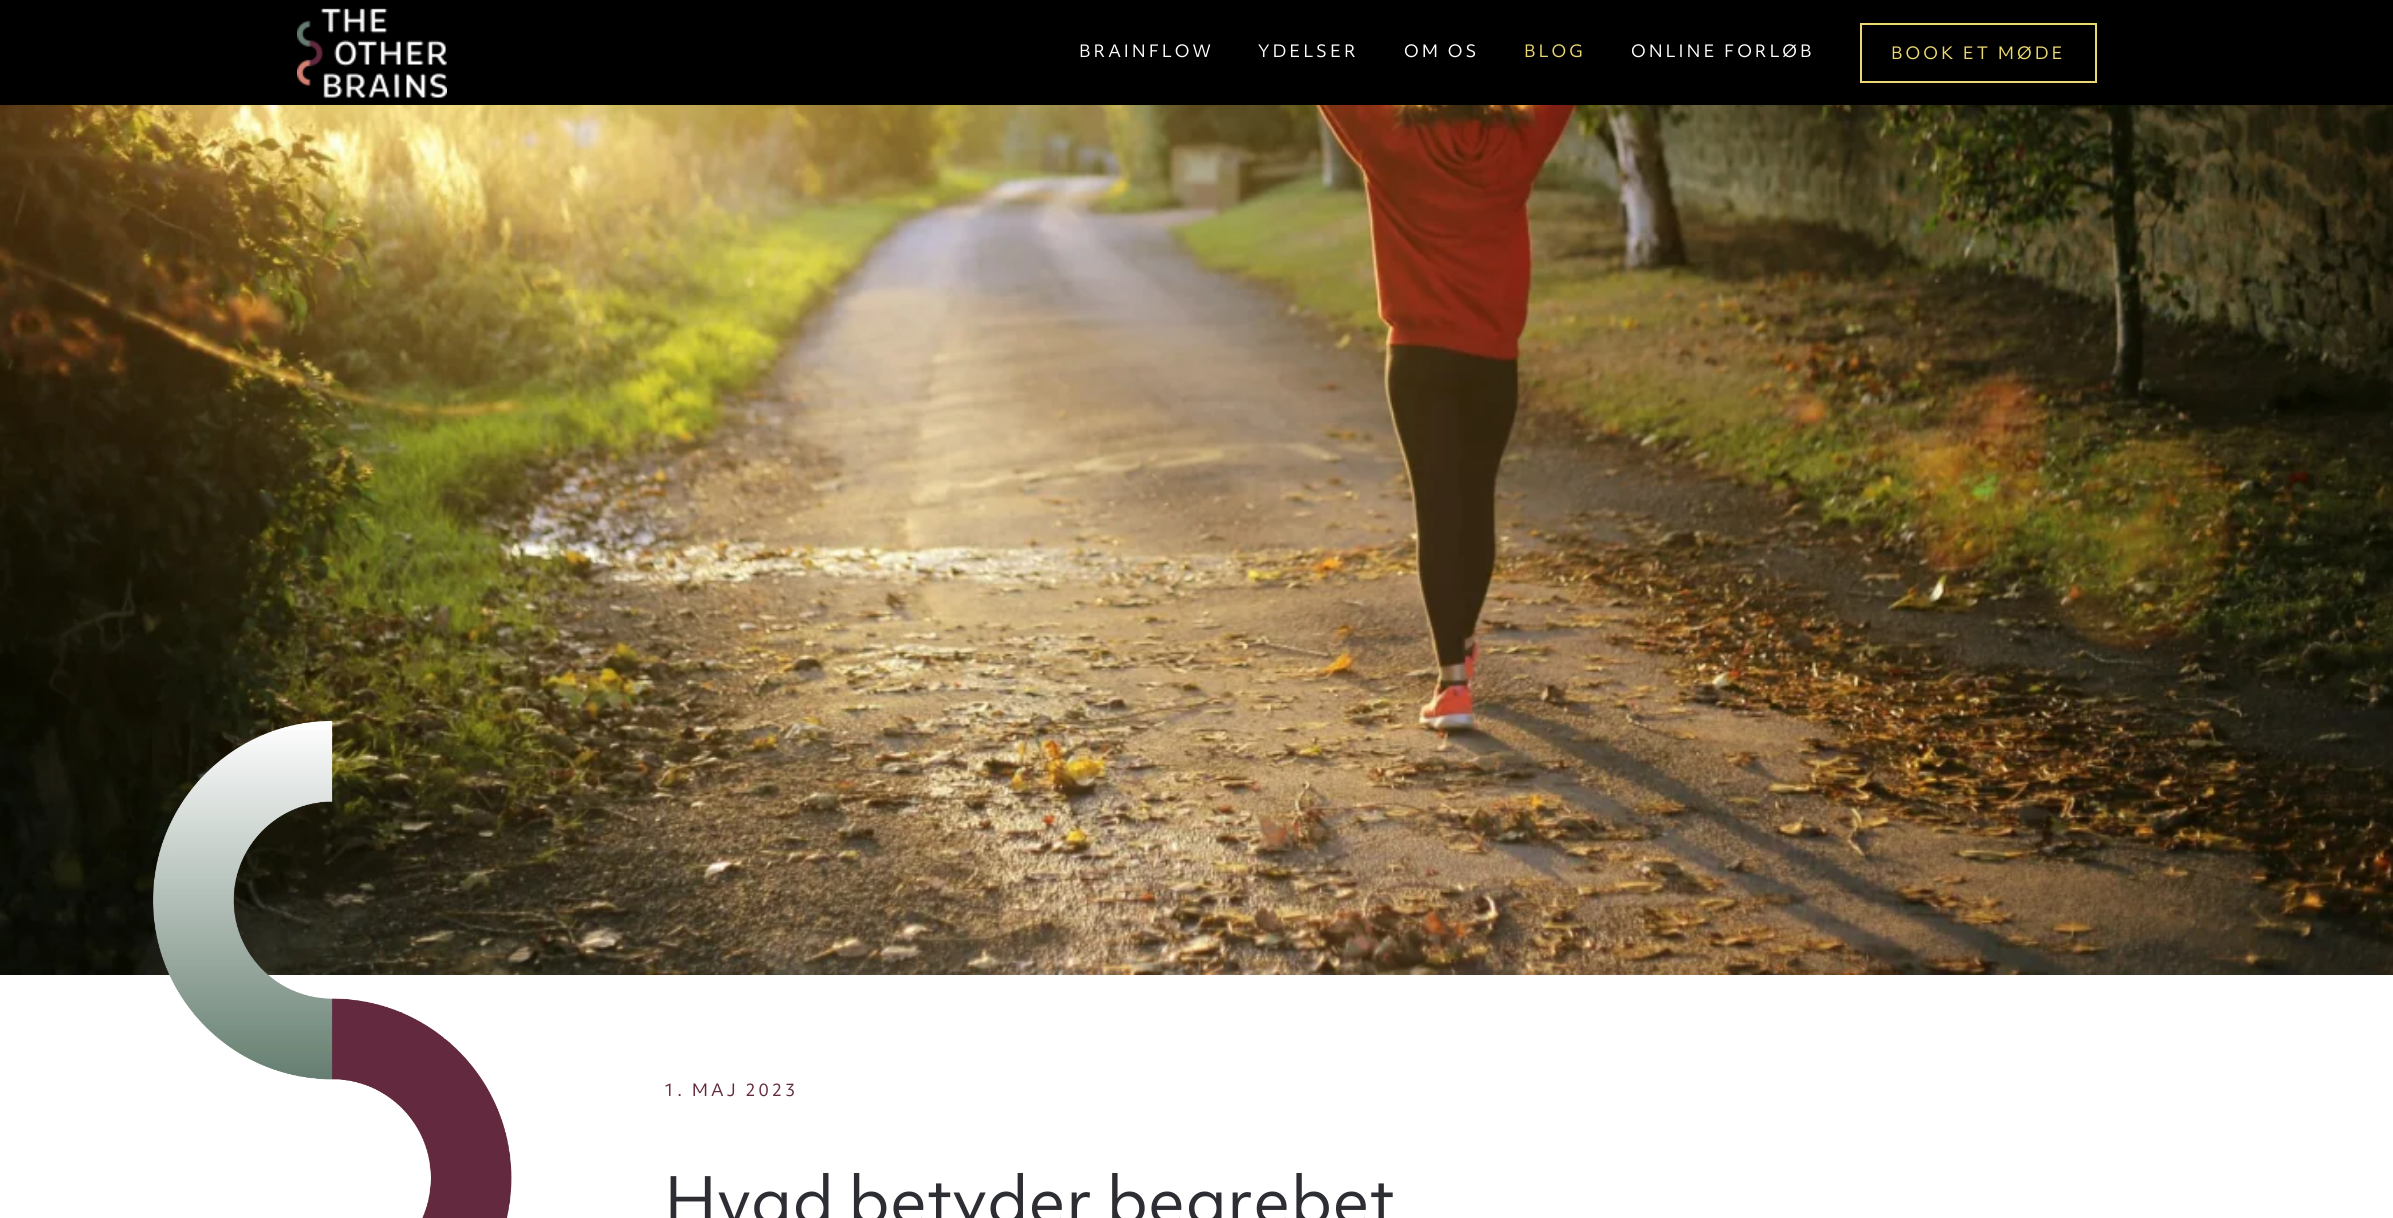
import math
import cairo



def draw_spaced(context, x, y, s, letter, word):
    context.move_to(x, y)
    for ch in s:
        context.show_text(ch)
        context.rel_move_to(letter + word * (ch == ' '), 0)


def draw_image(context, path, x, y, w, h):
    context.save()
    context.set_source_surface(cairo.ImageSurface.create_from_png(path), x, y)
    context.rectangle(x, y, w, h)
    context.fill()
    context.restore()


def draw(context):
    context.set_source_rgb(1, 1, 1)
    context.paint()
    context.set_source_rgb(0, 0, 0)
    context.rectangle(0, 0, 2393, 105)
    context.fill()
    draw_image(context, "images/1.png", 297, 8, 150, 90)
    context.rectangle(1861, 24, 235, 58)
    context.set_source_rgb(236 / 255, 217 / 255, 113 / 255)
    context.stroke()
    draw_image(context, "images/2.png", 0, 105, 2393, 870)
    draw_image(context, "images/3.png", 153, 721, 359, 497)
    context.select_font_face("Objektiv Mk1")
    context.set_font_size(16.5)
    context.set_source_rgb(1, 1, 1)
    draw_spaced(context, 1079, 57, "BRAINFLOW", 3, 0)
    draw_spaced(context, 1258, 57, "YDELSER", 3, 0)
    draw_spaced(context, 1404, 57, "OM OS", 3, 0)
    context.set_source_rgb(236 / 255, 217 / 255, 113 / 255)
    draw_spaced(context, 1524, 57, "BLOG", 3, 0)
    context.set_source_rgb(1, 1, 1)
    draw_spaced(context, 1631, 57, "ONLINE FORLØB", 3, 0)
    context.set_source_rgb(236 / 255, 217 / 255, 113 / 255)
    draw_spaced(context, 1891, 59, "BOOK ET MØDE", 3, 0)
    context.set_source_rgb(98 / 255, 41 / 255, 62 / 255)
    draw_spaced(context, 664, 1096, "1. MAJ 2023", 3, 0)
    context.set_font_size(63)
    context.set_source_rgb(45 / 255, 46 / 255, 51 / 255)
    context.move_to(664, 1224)
    context.show_text("Hvad betyder begrebet")


surface = cairo.ImageSurface(cairo.Format.RGB24, 2393, 1218)
context = cairo.Context(surface)
options = cairo.FontOptions()
options.set_hint_metrics(cairo.HintMetrics.OFF)
options.set_hint_style(cairo.HintStyle.NONE)
context.set_font_options(options)
context.set_miter_limit(4)
draw(context)
surface.write_to_png("out.png")
